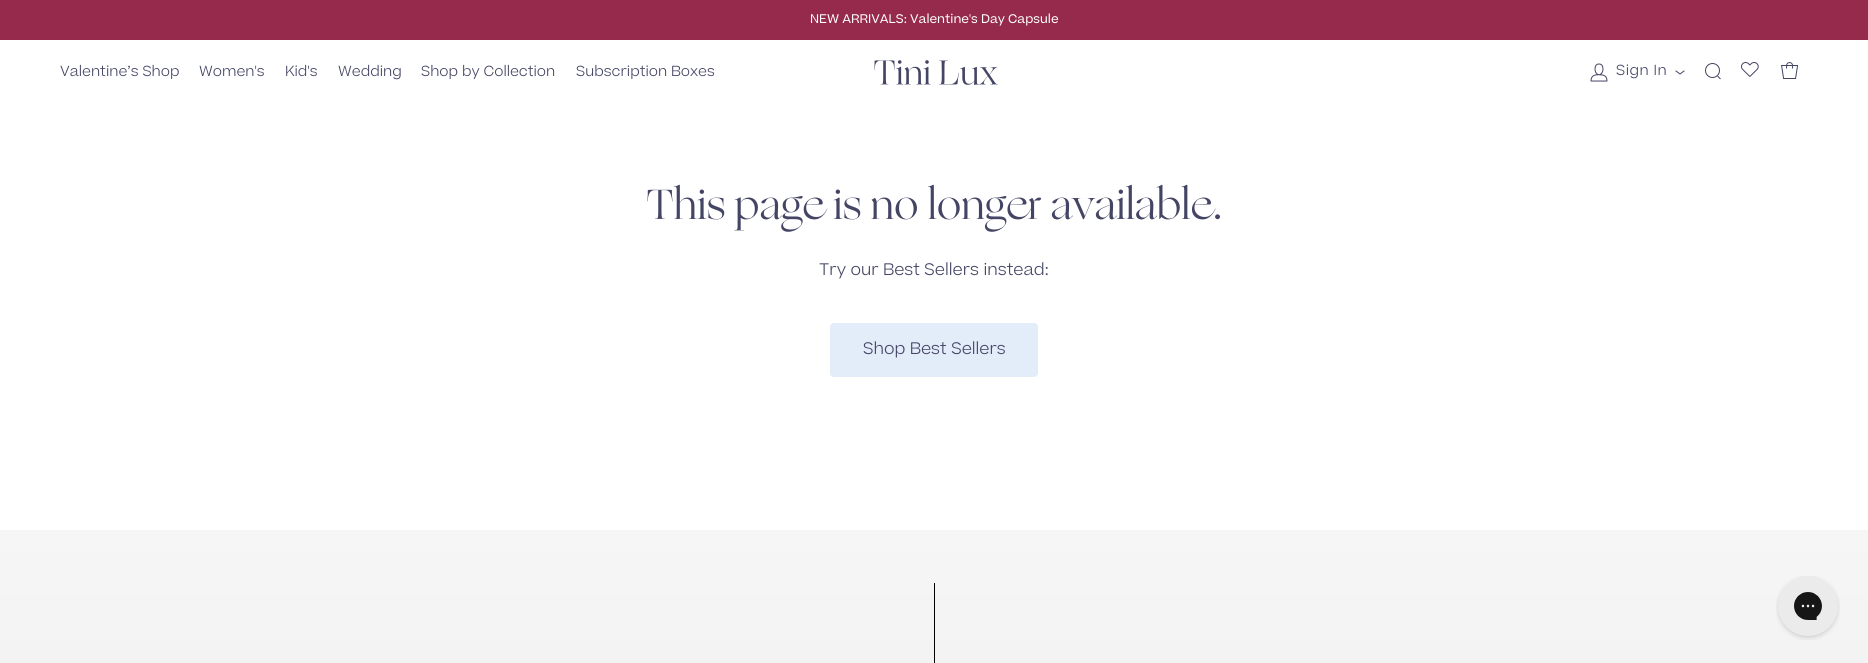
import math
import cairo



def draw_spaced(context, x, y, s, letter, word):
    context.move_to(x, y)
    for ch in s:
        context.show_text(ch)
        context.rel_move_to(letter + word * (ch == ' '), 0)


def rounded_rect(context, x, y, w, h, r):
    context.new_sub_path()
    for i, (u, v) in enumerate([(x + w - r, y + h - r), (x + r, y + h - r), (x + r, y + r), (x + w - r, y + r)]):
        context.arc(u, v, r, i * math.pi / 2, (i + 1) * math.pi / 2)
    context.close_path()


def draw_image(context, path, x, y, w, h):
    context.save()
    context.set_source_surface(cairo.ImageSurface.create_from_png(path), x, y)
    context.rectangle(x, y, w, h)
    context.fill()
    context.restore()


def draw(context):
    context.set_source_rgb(1, 1, 1)
    context.paint()
    context.set_source_rgb(149 / 255, 42 / 255, 76 / 255)
    context.rectangle(0, 0, 1868, 40)
    context.fill()
    draw_image(context, "images/1.png", 874, 60, 124, 25)
    draw_image(context, "images/2.png", 1590, 63, 18, 19)
    context.new_path()
    context.move_to(1684, 71)
    context.line_to(1680, 74)
    context.line_to(1676, 71)
    context.set_source_rgb(68 / 255, 69 / 255, 101 / 255)
    context.set_line_width(1)
    context.set_line_cap(cairo.LineCap.SQUARE)
    context.set_line_join(cairo.LineJoin.ROUND)
    context.stroke()
    context.arc(1712.5, 70.5, 7, 0, 2 * math.pi)
    context.set_line_cap(cairo.LineCap.BUTT)
    context.set_line_join(cairo.LineJoin.MITER)
    context.stroke()
    context.new_path()
    context.move_to(1717.5, 76)
    context.line_to(1720.5, 79)
    context.stroke()
    draw_image(context, "images/3.png", 1741, 62, 18, 15)
    draw_image(context, "images/4.png", 1781, 62, 17, 17)
    context.set_source_rgb(227 / 255, 236 / 255, 249 / 255)
    rounded_rect(context, 830.5, 323.5, 207, 53, 3.5)
    context.fill_preserve()
    context.stroke()
    gradient = cairo.LinearGradient(934, 530, 934, 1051)
    gradient.add_color_stop_rgba(0, 246 / 255, 246 / 255, 246 / 255, 1)
    gradient.add_color_stop_rgba(1, 235 / 255, 234 / 255, 234 / 255, 1)
    context.set_source(gradient)
    context.rectangle(0, 530, 1868, 133)
    context.fill()
    context.set_source_rgb(0, 0, 0)
    context.rectangle(934, 583, 1, 80)
    context.fill()
    draw_image(context, "images/5.png", 1776, 576, 64, 64)
    context.select_font_face("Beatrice")
    context.set_font_size(12)
    context.set_source_rgb(1, 1, 1)
    context.move_to(810, 23)
    context.show_text("NEW ARRIVALS: Valentine's Day Capsule")
    context.select_font_face("Beatrice Light")
    context.set_font_size(14)
    context.set_source_rgb(68 / 255, 69 / 255, 101 / 255)
    context.move_to(60, 76)
    context.show_text("Valentine’s Shop")
    context.move_to(199, 76)
    context.show_text("Women's")
    context.move_to(285, 76)
    context.show_text("Kid's")
    context.move_to(338, 76)
    context.show_text("Wedding")
    context.move_to(421, 76)
    context.show_text("Shop by Collection")
    context.move_to(576, 76)
    context.show_text("Subscription Boxes")
    draw_spaced(context, 1616, 75, "Sign In", 0.5, 0)
    context.select_font_face("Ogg")
    context.set_font_size(42.1)
    context.move_to(646, 219)
    context.show_text("This page is no longer available.")
    context.select_font_face("Beatrice Light")
    context.set_font_size(16)
    context.move_to(819, 275)
    context.show_text("Try our Best Sellers instead:")
    context.move_to(863, 354)
    context.show_text("Shop Best Sellers")


surface = cairo.ImageSurface(cairo.Format.RGB24, 1868, 663)
context = cairo.Context(surface)
options = cairo.FontOptions()
options.set_hint_metrics(cairo.HintMetrics.OFF)
options.set_hint_style(cairo.HintStyle.NONE)
context.set_font_options(options)
context.set_miter_limit(4)
draw(context)
surface.write_to_png("out.png")
